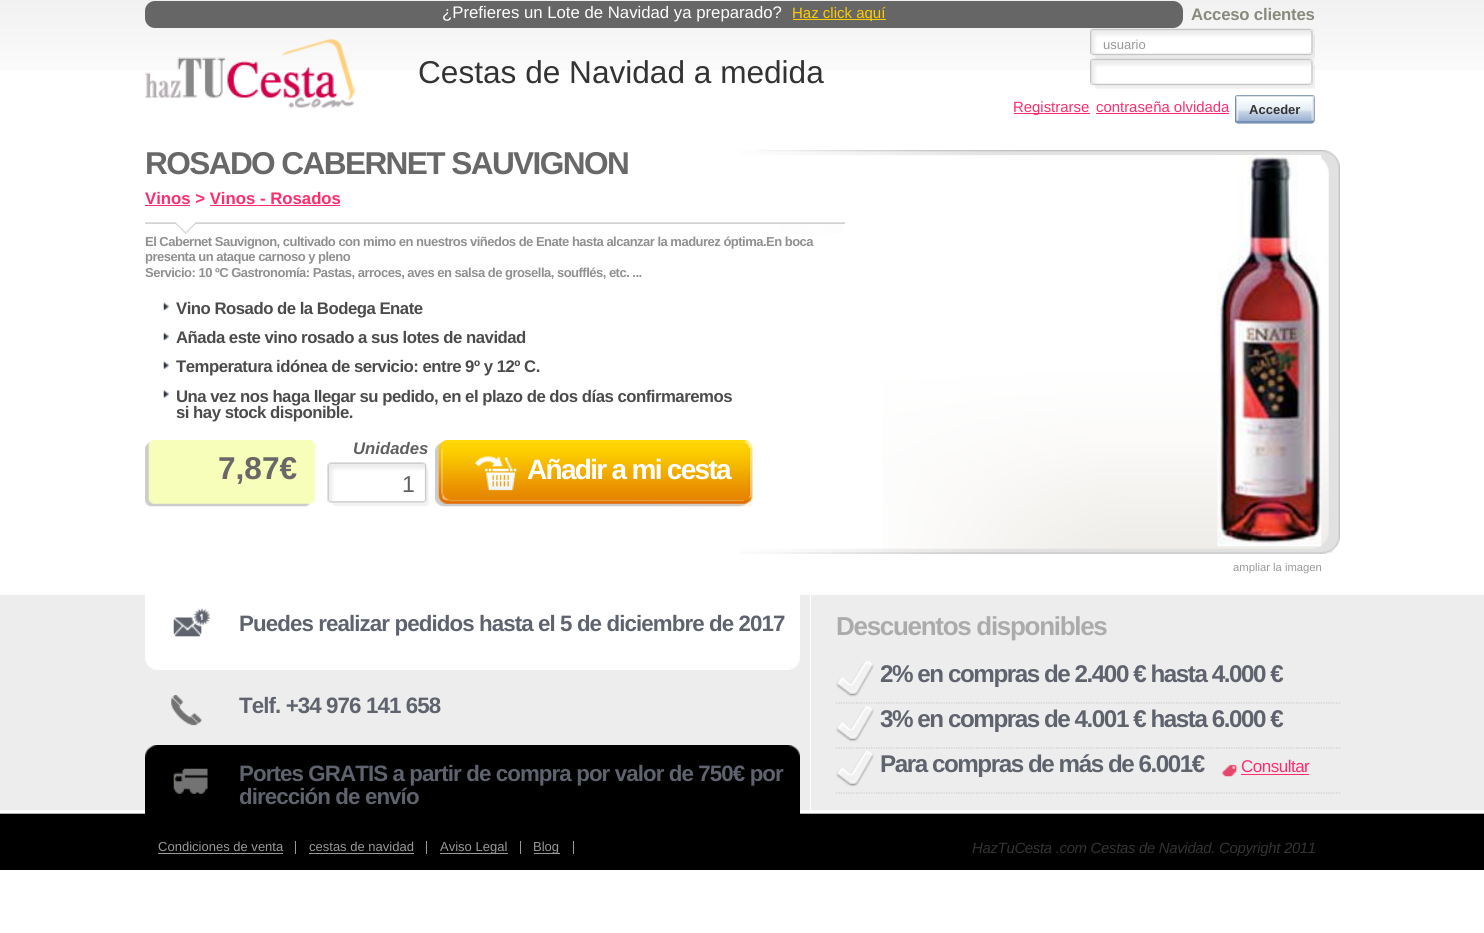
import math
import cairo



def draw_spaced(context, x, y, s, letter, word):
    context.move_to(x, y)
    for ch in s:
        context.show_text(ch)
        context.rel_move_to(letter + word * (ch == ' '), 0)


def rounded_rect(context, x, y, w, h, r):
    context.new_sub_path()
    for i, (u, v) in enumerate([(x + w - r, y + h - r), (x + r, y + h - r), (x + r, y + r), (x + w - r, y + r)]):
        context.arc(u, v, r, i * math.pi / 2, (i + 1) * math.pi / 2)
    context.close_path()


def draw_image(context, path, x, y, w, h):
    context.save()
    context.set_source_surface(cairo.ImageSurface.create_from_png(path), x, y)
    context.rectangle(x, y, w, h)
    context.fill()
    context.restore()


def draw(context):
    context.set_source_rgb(1, 1, 1)
    context.paint()
    draw_image(context, "images/1.png", 0, 0, 1484, 70)
    draw_image(context, "images/2.png", 145, 38, 211, 70)
    context.set_source_rgb(102 / 255, 102 / 255, 102 / 255)
    rounded_rect(context, 145, 1, 1038, 27, 10)
    context.fill()
    context.set_source_rgb(1, 204 / 255, 0)
    context.rectangle(793, 19, 93, 1)
    context.fill()
    draw_image(context, "images/3.png", 1090, 28, 225, 31)
    draw_image(context, "images/4.png", 1090, 58, 225, 31)
    context.set_source_rgb(1, 45 / 255, 109 / 255)
    context.rectangle(1014, 113, 76, 1)
    context.fill()
    context.rectangle(1096, 113, 133, 1)
    context.fill()
    draw_image(context, "images/5.png", 1235, 95, 80, 29)
    draw_image(context, "images/6.png", 739, 150, 601, 404)
    draw_image(context, "images/7.png", 1217, 155, 105, 392)
    context.rectangle(145, 205, 45, 1)
    context.fill()
    context.rectangle(210, 205, 130, 1)
    context.fill()
    draw_image(context, "images/8.png", 145, 222, 700, 12)
    draw_image(context, "images/9.png", 163, 302, 6, 9)
    draw_image(context, "images/9.png", 163, 332, 6, 9)
    draw_image(context, "images/10.png", 163, 361, 6, 8)
    draw_image(context, "images/11.png", 163, 389, 6, 9)
    draw_image(context, "images/12.png", 145, 440, 170, 67)
    draw_image(context, "images/13.png", 327, 462, 102, 44)
    draw_image(context, "images/14.png", 435, 440, 318, 67)
    context.set_source_rgb(237 / 255, 237 / 255, 237 / 255)
    context.rectangle(0, 595, 1484, 215)
    context.fill()
    draw_image(context, "images/15.png", 0, 810, 1484, 60)
    draw_image(context, "images/16.png", 145, 595, 655, 75)
    context.set_source_rgb(1, 1, 1)
    context.rectangle(810, 595, 1, 218)
    context.fill()
    draw_image(context, "images/17.png", 836, 661, 38, 36)
    context.save()
    context.rectangle(811, 595, 529, 218)
    context.clip()
    context.new_path()
    context.move_to(836, 703)
    context.line_to(1466, 703)
    context.set_source_rgb(204 / 255, 204 / 255, 204 / 255)
    context.set_line_width(1.2)
    context.set_dash([1.25, 1.25])
    context.stroke()
    context.restore()
    draw_image(context, "images/17.png", 836, 706, 38, 36)
    context.save()
    context.rectangle(811, 595, 529, 218)
    context.clip()
    context.new_path()
    context.move_to(836, 748)
    context.line_to(1466, 748)
    context.set_source_rgb(204 / 255, 204 / 255, 204 / 255)
    context.set_line_width(1.2)
    context.set_dash([1.25, 1.25])
    context.stroke()
    context.restore()
    draw_image(context, "images/17.png", 836, 751, 38, 36)
    context.save()
    context.rectangle(811, 595, 529, 218)
    context.clip()
    context.new_path()
    context.move_to(836, 793)
    context.line_to(1466, 793)
    context.set_source_rgb(204 / 255, 204 / 255, 204 / 255)
    context.set_line_width(1.2)
    context.set_dash([1.25, 1.25])
    context.stroke()
    context.restore()
    draw_image(context, "images/18.png", 1221, 764, 17, 13)
    context.set_source_rgb(1, 45 / 255, 109 / 255)
    context.rectangle(1241, 774, 68, 1)
    context.fill()
    draw_image(context, "images/19.png", 171, 695, 31, 31)
    draw_image(context, "images/20.png", 145, 745, 655, 69)
    context.set_source_rgb(153 / 255, 153 / 255, 153 / 255)
    context.rectangle(295, 841, 1, 13)
    context.fill()
    context.rectangle(158, 853, 125, 1)
    context.fill()
    context.rectangle(426, 841, 1, 13)
    context.fill()
    context.rectangle(309, 853, 105, 1)
    context.fill()
    context.rectangle(520, 841, 1, 13)
    context.fill()
    context.rectangle(440, 853, 68, 1)
    context.fill()
    context.rectangle(573, 841, 1, 13)
    context.fill()
    context.rectangle(534, 853, 26, 1)
    context.fill()
    context.select_font_face("Liberation Sans")
    context.set_font_size(16.75)
    context.set_source_rgb(1, 1, 1)
    context.move_to(442, 18)
    context.show_text("¿Prefieres un Lote de Navidad ya preparado?")
    context.set_font_size(15)
    context.set_source_rgb(1, 204 / 255, 0)
    context.move_to(792, 18)
    context.show_text("Haz click aquí")
    context.select_font_face("Liberation Sans", cairo.FontSlant.NORMAL, cairo.FontWeight.BOLD)
    context.set_font_size(16.75)
    context.set_source_rgb(137 / 255, 137 / 255, 124 / 255)
    draw_spaced(context, 1191, 20, "Acceso clientes", -0.2, 0)
    context.select_font_face("Liberation Sans")
    context.set_font_size(13.02)
    context.set_source_rgb(153 / 255, 153 / 255, 153 / 255)
    context.move_to(1103, 49)
    context.show_text("usuario")
    context.set_font_size(14.9)
    context.set_source_rgb(1, 45 / 255, 109 / 255)
    context.move_to(1013, 112)
    context.show_text("Registrarse")
    context.move_to(1096, 112)
    context.show_text("contraseña olvidada")
    context.select_font_face("Liberation Sans", cairo.FontSlant.NORMAL, cairo.FontWeight.BOLD)
    context.set_font_size(13.02)
    context.set_source_rgb(51 / 255, 51 / 255, 51 / 255)
    context.move_to(1249, 114)
    context.show_text("Acceder")
    context.select_font_face("Liberation Sans")
    context.set_font_size(31.6)
    context.move_to(418, 83)
    context.show_text("Cestas de Navidad a medida")
    context.select_font_face("Liberation Sans", cairo.FontSlant.NORMAL, cairo.FontWeight.BOLD)
    context.set_source_rgb(104 / 255, 104 / 255, 104 / 255)
    draw_spaced(context, 145, 174, "ROSADO CABERNET SAUVIGNON", -1.6, 0)
    context.set_font_size(16.75)
    context.set_source_rgb(1, 45 / 255, 109 / 255)
    context.move_to(145, 204)
    context.show_text("Vinos > Vinos - Rosados")
    context.set_font_size(13.02)
    context.set_source_rgb(144 / 255, 144 / 255, 144 / 255)
    draw_spaced(context, 145, 246, "El Cabernet Sauvignon, cultivado con mimo en nuestros viñedos de Enate hasta alcanzar la madurez óptima.En boca", -0.52, 0)
    draw_spaced(context, 145, 261, "presenta un ataque carnoso y pleno", -0.52, 0)
    draw_spaced(context, 145, 277, "Servicio: 10 ºC Gastronomía: Pastas, arroces, aves en salsa de grosella, soufflés, etc. ...", -0.52, 0)
    context.set_font_size(16.75)
    context.set_source_rgb(75 / 255, 75 / 255, 75 / 255)
    draw_spaced(context, 176, 314, "Vino Rosado de la Bodega Enate", -0.5, 0)
    draw_spaced(context, 176, 343, "Añada este vino rosado a sus lotes de navidad", -0.5, 0)
    draw_spaced(context, 176, 372, "Temperatura idónea de servicio: entre 9º y 12º C.", -0.5, 0)
    draw_spaced(context, 176, 402, "Una vez nos haga llegar su pedido, en el plazo de dos días confirmaremos", -0.5, 0)
    draw_spaced(context, 176, 418, "si hay stock disponible.", -0.5, 0)
    context.set_font_size(31.6)
    context.set_source_rgb(104 / 255, 104 / 255, 104 / 255)
    context.move_to(218, 479)
    context.show_text("7,87€")
    context.select_font_face("Liberation Sans", cairo.FontSlant.ITALIC, cairo.FontWeight.BOLD)
    context.set_font_size(16.75)
    context.set_source_rgb(96 / 255, 96 / 255, 96 / 255)
    context.move_to(353, 454)
    context.show_text("Unidades")
    context.select_font_face("Liberation Sans")
    context.set_font_size(23)
    context.move_to(402, 492)
    context.show_text("1")
    context.select_font_face("Liberation Sans", cairo.FontSlant.NORMAL, cairo.FontWeight.BOLD)
    context.set_font_size(28)
    context.set_source_rgb(1, 1, 1)
    draw_spaced(context, 527, 479, "Añadir a mi cesta", -1.7, 0)
    context.select_font_face("Liberation Sans")
    context.set_font_size(11.25)
    context.set_source_rgb(153 / 255, 153 / 255, 153 / 255)
    context.move_to(1233, 571)
    context.show_text("ampliar la imagen")
    context.select_font_face("Liberation Sans", cairo.FontSlant.NORMAL, cairo.FontWeight.BOLD)
    context.set_font_size(22.3)
    context.set_source_rgb(94 / 255, 99 / 255, 110 / 255)
    draw_spaced(context, 239, 631, "Puedes realizar pedidos hasta el 5 de diciembre de 2017", -0.9, 0)
    context.set_font_size(26)
    context.set_source_rgb(171 / 255, 171 / 255, 171 / 255)
    draw_spaced(context, 836, 635, "Descuentos disponibles", -1.3, 0)
    context.set_font_size(24.2)
    context.set_source_rgb(94 / 255, 99 / 255, 110 / 255)
    draw_spaced(context, 880, 682, "2% en compras de 2.400 € hasta 4.000 €", -1.45, 0)
    draw_spaced(context, 880, 727, "3% en compras de 4.001 € hasta 6.000 €", -1.45, 0)
    draw_spaced(context, 880, 772, "Para compras de más de 6.001€", -1.45, 0)
    context.select_font_face("Liberation Sans")
    context.set_font_size(17)
    context.set_source_rgb(1, 45 / 255, 109 / 255)
    draw_spaced(context, 1241, 772, "Consultar", -0.5, 0)
    context.select_font_face("Liberation Sans", cairo.FontSlant.NORMAL, cairo.FontWeight.BOLD)
    context.set_font_size(22.3)
    context.set_source_rgb(94 / 255, 99 / 255, 110 / 255)
    draw_spaced(context, 239, 713, "Telf. +34 976 141 658", -0.9, 0)
    draw_spaced(context, 239, 781, "Portes GRATIS a partir de compra por valor de 750€ por", -0.9, 0)
    draw_spaced(context, 239, 804, "dirección de envío", -0.9, 0)
    context.select_font_face("Liberation Sans")
    context.set_font_size(13.02)
    context.set_source_rgb(153 / 255, 153 / 255, 153 / 255)
    context.move_to(158, 851)
    context.show_text("Condiciones de venta")
    context.move_to(309, 851)
    context.show_text("cestas de navidad")
    context.move_to(440, 851)
    context.show_text("Aviso Legal")
    context.move_to(533, 851)
    context.show_text("Blog")
    context.select_font_face("Liberation Sans", cairo.FontSlant.ITALIC)
    context.set_font_size(14.9)
    context.set_source_rgb(51 / 255, 51 / 255, 51 / 255)
    draw_spaced(context, 972, 853, "HazTuCesta .com Cestas de Navidad. Copyright 2011", -0.3, 0)


surface = cairo.ImageSurface(cairo.Format.RGB24, 1484, 933)
context = cairo.Context(surface)
options = cairo.FontOptions()
options.set_hint_metrics(cairo.HintMetrics.OFF)
options.set_hint_style(cairo.HintStyle.NONE)
context.set_font_options(options)
context.set_miter_limit(4)
draw(context)
surface.write_to_png("out.png")
